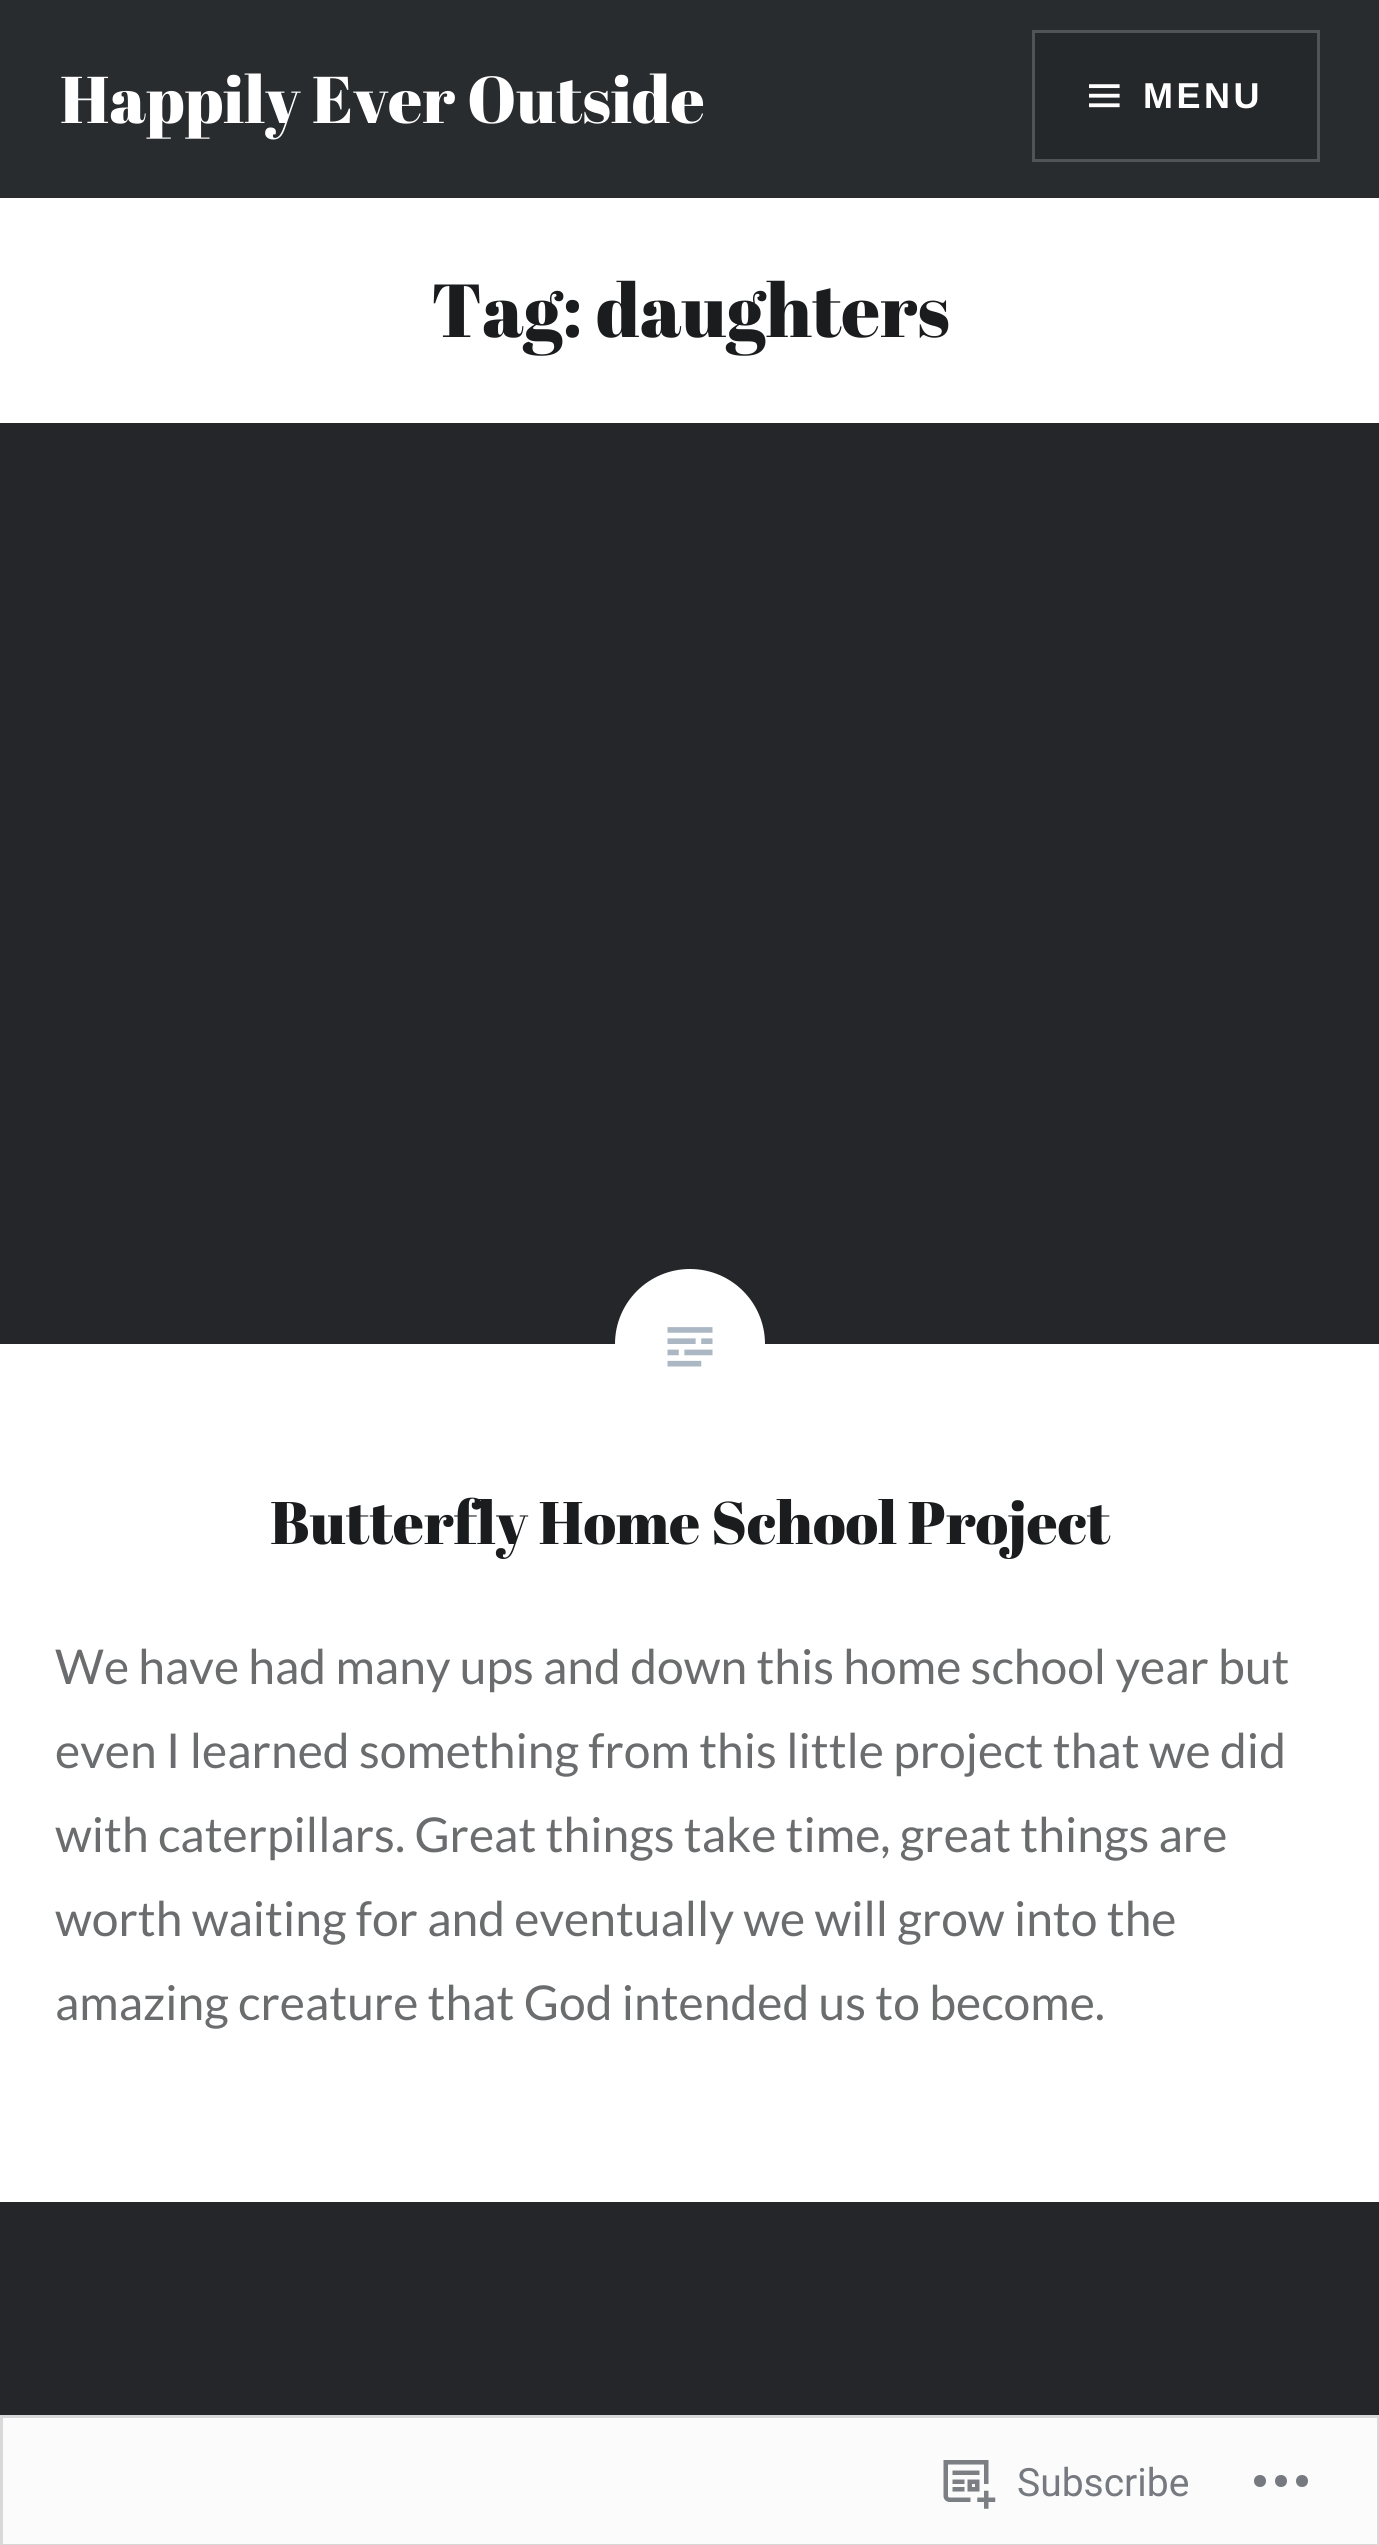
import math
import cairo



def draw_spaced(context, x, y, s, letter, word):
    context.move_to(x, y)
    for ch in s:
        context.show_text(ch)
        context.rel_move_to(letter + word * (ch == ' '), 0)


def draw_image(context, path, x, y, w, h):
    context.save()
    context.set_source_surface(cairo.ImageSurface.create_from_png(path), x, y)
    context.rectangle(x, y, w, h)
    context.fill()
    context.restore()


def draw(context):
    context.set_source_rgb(1, 1, 1)
    context.paint()
    context.set_source_rgb(41 / 255, 44 / 255, 47 / 255)
    context.rectangle(0, 0, 1379, 198)
    context.fill()
    context.set_source_rgb(37 / 255, 40 / 255, 42 / 255)
    context.rectangle(1033.5, 31.5, 285, 129)
    context.fill_preserve()
    context.set_source_rgb(81 / 255, 83 / 255, 85 / 255)
    context.set_line_width(3)
    context.stroke()
    draw_image(context, "images/1.png", 1089, 84, 31, 24)
    context.set_source_rgb(36 / 255, 38 / 255, 41 / 255)
    context.rectangle(0, 423, 1379, 921)
    context.fill()
    context.set_source_rgb(1, 1, 1)
    context.arc(690, 1344, 75, 0, 2 * math.pi)
    context.fill()
    draw_image(context, "images/2.png", 667, 1327, 46, 40)
    context.set_source_rgb(36 / 255, 38 / 255, 41 / 255)
    context.rectangle(0, 2202, 1379, 213)
    context.fill()
    context.set_source_rgb(251 / 255, 251 / 255, 251 / 255)
    context.rectangle(1.5, 2416.5, 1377, 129)
    context.fill_preserve()
    context.set_source_rgb(216 / 255, 216 / 255, 218 / 255)
    context.stroke()
    draw_image(context, "images/3.png", 943, 2460, 53, 49)
    context.set_source_rgb(118 / 255, 122 / 255, 128 / 255)
    context.new_path()
    context.move_to(1266, 2481)
    context.curve_to(1266, 2489, 1254, 2489, 1254, 2481)
    context.curve_to(1254, 2473, 1266, 2473, 1266, 2481)
    context.close_path()
    context.move_to(1302, 2475)
    context.curve_to(1294, 2475, 1294, 2487, 1302, 2487)
    context.curve_to(1310, 2487, 1310, 2475, 1302, 2475)
    context.close_path()
    context.move_to(1281, 2475)
    context.curve_to(1273, 2475, 1273, 2487, 1281, 2487)
    context.curve_to(1289, 2487, 1289, 2475, 1281, 2475)
    context.close_path()
    context.fill()
    context.select_font_face("Abril Fatface")
    context.set_font_size(66)
    context.set_source_rgb(1, 1, 1)
    context.move_to(60, 123)
    context.show_text("Happily Ever Outside")
    context.select_font_face("Liberation Sans", cairo.FontSlant.NORMAL, cairo.FontWeight.BOLD)
    context.set_font_size(36)
    draw_spaced(context, 1143, 108, "MENU", 3.5, 0)
    context.select_font_face("Abril Fatface")
    context.set_font_size(75)
    context.set_source_rgb(26 / 255, 28 / 255, 30 / 255)
    context.move_to(431, 337)
    context.show_text("Tag: daughters")
    context.set_font_size(60)
    context.move_to(270, 1544)
    context.show_text("Butterfly Home School Project")
    context.select_font_face("Lato")
    context.set_font_size(48)
    context.set_source_rgb(106 / 255, 108 / 255, 110 / 255)
    context.move_to(55, 1684)
    context.show_text("We have had many ups and down this home school year but")
    context.move_to(55, 1768)
    context.show_text("even I learned something from this little project that we did")
    context.move_to(55, 1852)
    context.show_text("with caterpillars. Great things take time, great things are")
    context.move_to(55, 1936)
    context.show_text("worth waiting for and eventually we will grow into the")
    context.move_to(55, 2020)
    context.show_text("amazing creature that God intended us to become.")
    context.select_font_face("Roboto")
    context.set_font_size(39)
    context.set_source_rgb(118 / 255, 122 / 255, 128 / 255)
    context.move_to(1017, 2496)
    context.show_text("Subscribe")


surface = cairo.ImageSurface(cairo.Format.RGB24, 1379, 2545)
context = cairo.Context(surface)
options = cairo.FontOptions()
options.set_hint_metrics(cairo.HintMetrics.OFF)
options.set_hint_style(cairo.HintStyle.NONE)
context.set_font_options(options)
context.set_miter_limit(4)
draw(context)
surface.write_to_png("out.png")
